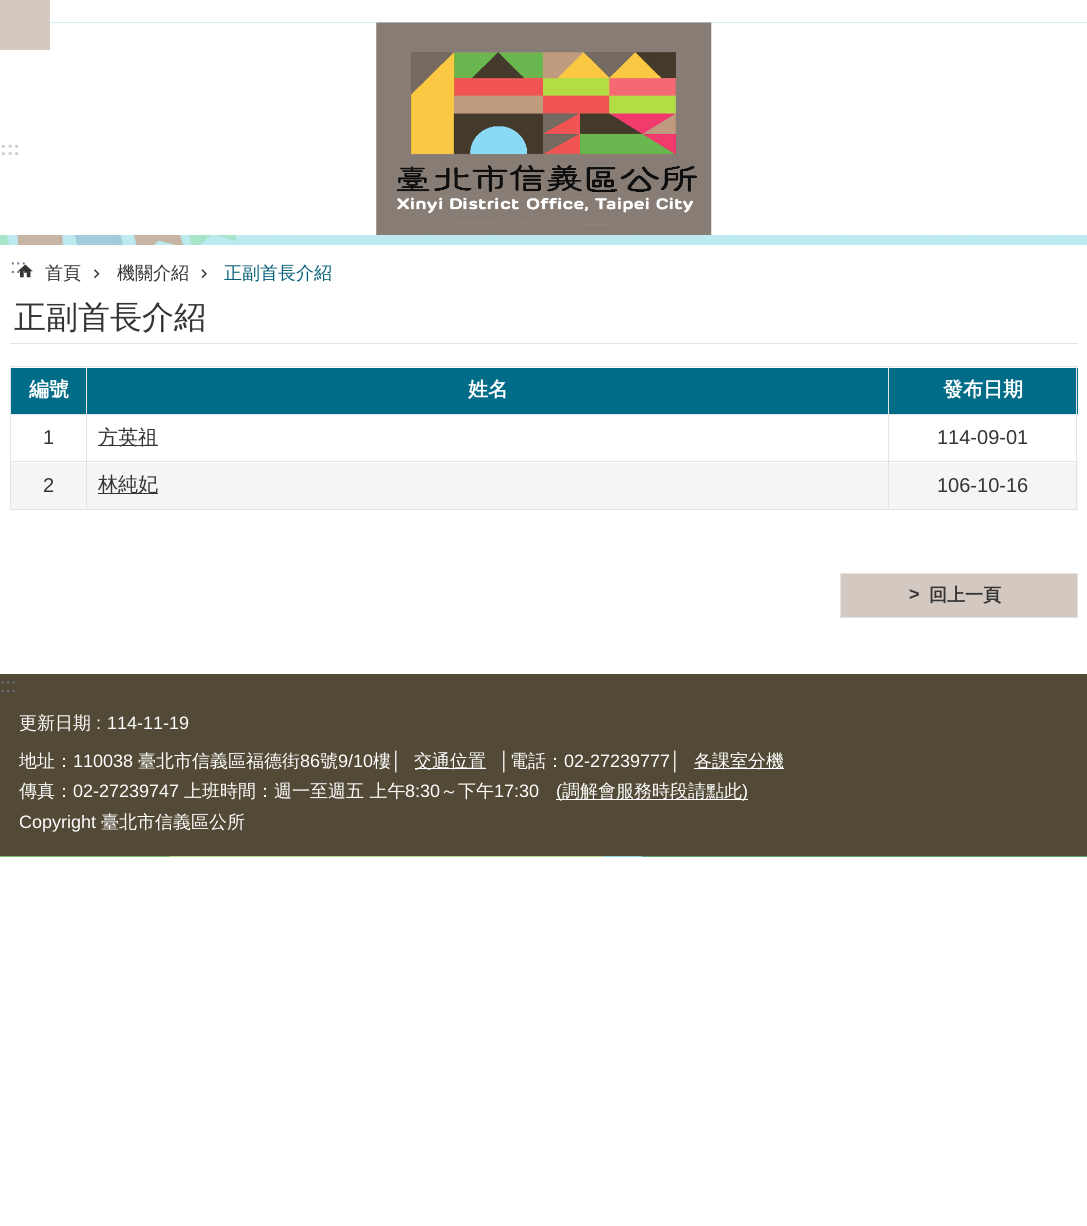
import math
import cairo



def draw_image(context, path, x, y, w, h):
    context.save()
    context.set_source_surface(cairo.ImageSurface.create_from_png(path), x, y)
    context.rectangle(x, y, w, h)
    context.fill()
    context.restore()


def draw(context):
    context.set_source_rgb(1, 1, 1)
    context.paint()
    draw_image(context, "images/1.png", 0, 22, 1087, 835)
    context.set_source_rgb(1, 1, 1)
    context.rectangle(0, 23, 1087, 212)
    context.fill()
    context.set_source_rgb(211 / 255, 201 / 255, 193 / 255)
    context.rectangle(0, 0, 50, 50)
    context.fill()
    draw_image(context, "images/2.png", 376, 22, 336, 213)
    context.set_source_rgb(1, 1, 1)
    context.rectangle(0, 245, 1087, 429)
    context.fill()
    draw_image(context, "images/3.png", 17, 264, 16, 14)
    draw_image(context, "images/4.png", 94, 269, 6, 10)
    draw_image(context, "images/5.png", 201, 269, 6, 10)
    context.set_source_rgb(228 / 255, 228 / 255, 228 / 255)
    context.rectangle(10, 343, 1068, 1)
    context.fill()
    context.set_source_rgb(0, 108 / 255, 135 / 255)
    context.rectangle(11, 368, 877, 46)
    context.fill()
    context.set_source_rgb(228 / 255, 228 / 255, 228 / 255)
    context.rectangle(888, 366, 190, 1)
    context.fill()
    context.rectangle(888, 414, 190, 1)
    context.fill()
    context.rectangle(888, 461, 190, 1)
    context.fill()
    context.set_source_rgb(245 / 255, 245 / 255, 245 / 255)
    context.rectangle(11, 463, 1067, 46)
    context.fill()
    context.set_source_rgb(228 / 255, 228 / 255, 228 / 255)
    context.rectangle(1076, 461, 1, 49)
    context.fill()
    context.rectangle(888, 509, 190, 1)
    context.fill()
    context.rectangle(888, 461, 1, 49)
    context.fill()
    context.rectangle(86, 461, 803, 1)
    context.fill()
    context.rectangle(888, 414, 1, 49)
    context.fill()
    context.rectangle(86, 414, 803, 1)
    context.fill()
    context.rectangle(888, 366, 1, 49)
    context.fill()
    context.rectangle(86, 366, 803, 1)
    context.fill()
    context.rectangle(86, 509, 803, 1)
    context.fill()
    context.rectangle(86, 461, 1, 49)
    context.fill()
    context.rectangle(10, 461, 78, 1)
    context.fill()
    context.rectangle(86, 414, 1, 49)
    context.fill()
    context.rectangle(10, 414, 78, 1)
    context.fill()
    context.rectangle(86, 366, 1, 49)
    context.fill()
    context.rectangle(10, 366, 78, 1)
    context.fill()
    context.rectangle(10, 509, 78, 1)
    context.fill()
    context.rectangle(10, 461, 1, 49)
    context.fill()
    context.rectangle(10, 414, 1, 49)
    context.fill()
    context.rectangle(10, 366, 1, 49)
    context.fill()
    context.set_source_rgb(0, 108 / 255, 135 / 255)
    context.rectangle(889, 368, 189, 46)
    context.fill()
    context.set_source_rgb(228 / 255, 228 / 255, 228 / 255)
    context.rectangle(1076, 414, 1, 49)
    context.fill()
    context.rectangle(1076, 366, 1, 49)
    context.fill()
    context.set_source_rgb(52 / 255, 52 / 255, 52 / 255)
    context.rectangle(98, 445, 60, 1)
    context.fill()
    context.rectangle(98, 493, 60, 1)
    context.fill()
    context.set_source_rgb(211 / 255, 201 / 255, 193 / 255)
    context.rectangle(840.5, 573.5, 237, 44)
    context.fill_preserve()
    context.set_source_rgb(228 / 255, 228 / 255, 228 / 255)
    context.set_line_width(1)
    context.stroke()
    context.set_source_rgb(82 / 255, 74 / 255, 55 / 255)
    context.rectangle(0, 674, 1087, 182)
    context.fill()
    context.set_source_rgb(1, 1, 1)
    context.rectangle(415, 768, 71, 1)
    context.fill()
    context.rectangle(694, 768, 90, 1)
    context.fill()
    context.rectangle(556, 799, 192, 1)
    context.fill()
    context.select_font_face("Liberation Sans", cairo.FontSlant.NORMAL, cairo.FontWeight.BOLD)
    context.set_font_size(20)
    context.set_source_rgb(204 / 255, 204 / 255, 204 / 255)
    context.move_to(0, 155)
    context.show_text(":::")
    context.select_font_face("Liberation Sans")
    context.set_source_rgb(99 / 255, 117 / 255, 139 / 255)
    context.move_to(10, 273)
    context.show_text(":::")
    context.select_font_face("WenQuanYi Zen Hei Medium")
    context.set_font_size(18)
    context.set_source_rgb(52 / 255, 52 / 255, 52 / 255)
    context.move_to(45, 279)
    context.show_text("首頁")
    context.move_to(117, 279)
    context.show_text("機關介紹")
    context.set_source_rgb(5 / 255, 95 / 255, 118 / 255)
    context.move_to(224, 279)
    context.show_text("正副首長介紹")
    context.set_font_size(32)
    context.set_source_rgb(52 / 255, 52 / 255, 52 / 255)
    context.move_to(14, 328)
    context.show_text("正副首長介紹")
    context.select_font_face("WenQuanYi Zen Hei", cairo.FontSlant.NORMAL, cairo.FontWeight.BOLD)
    context.set_font_size(20)
    context.set_source_rgb(1, 1, 1)
    context.move_to(29, 396)
    context.show_text("編號")
    context.move_to(468, 396)
    context.show_text("姓名")
    context.move_to(943, 396)
    context.show_text("發布日期")
    context.select_font_face("Liberation Sans")
    context.set_source_rgb(52 / 255, 52 / 255, 52 / 255)
    context.move_to(43, 444)
    context.show_text("1")
    context.select_font_face("WenQuanYi Zen Hei Medium")
    context.move_to(98, 444)
    context.show_text("方英祖")
    context.select_font_face("Liberation Sans")
    context.move_to(937, 444)
    context.show_text("114-09-01")
    context.move_to(43, 492)
    context.show_text("2")
    context.select_font_face("WenQuanYi Zen Hei Medium")
    context.move_to(98, 491)
    context.show_text("林純妃")
    context.select_font_face("Liberation Sans")
    context.move_to(937, 492)
    context.show_text("106-10-16")
    context.select_font_face("Liberation Sans", cairo.FontSlant.NORMAL, cairo.FontWeight.BOLD)
    context.set_font_size(18)
    context.move_to(909, 600)
    context.show_text(">")
    context.select_font_face("WenQuanYi Zen Hei", cairo.FontSlant.NORMAL, cairo.FontWeight.BOLD)
    context.move_to(929, 601)
    context.show_text("回上一頁")
    context.select_font_face("Liberation Sans")
    context.set_font_size(20)
    context.set_source_rgb(99 / 255, 117 / 255, 139 / 255)
    context.move_to(0, 692)
    context.show_text(":::")
    context.select_font_face("WenQuanYi Zen Hei Medium")
    context.set_font_size(18)
    context.set_source_rgb(1, 1, 1)
    context.move_to(19, 729)
    context.show_text("更新日期")
    context.select_font_face("Liberation Sans")
    context.move_to(96, 729)
    context.show_text(":")
    context.move_to(107, 729)
    context.show_text("114-11-19")
    context.select_font_face("WenQuanYi Zen Hei Medium")
    context.move_to(19, 767)
    context.show_text("地址：")
    context.select_font_face("Liberation Sans")
    context.move_to(73, 767)
    context.show_text("110038")
    context.select_font_face("WenQuanYi Zen Hei Medium")
    context.move_to(138, 767)
    context.show_text("臺北市信義區福德街")
    context.select_font_face("Liberation Sans")
    context.move_to(300, 767)
    context.show_text("86")
    context.select_font_face("WenQuanYi Zen Hei Medium")
    context.move_to(320, 767)
    context.show_text("號")
    context.select_font_face("Liberation Sans")
    context.move_to(338, 767)
    context.show_text("9/10")
    context.select_font_face("WenQuanYi Zen Hei Medium")
    context.move_to(373, 767)
    context.show_text("樓")
    context.select_font_face("Liberation Sans")
    context.move_to(391, 767)
    context.show_text("│")
    context.select_font_face("WenQuanYi Zen Hei Medium")
    context.move_to(414, 767)
    context.show_text("交通位置")
    context.select_font_face("Liberation Sans")
    context.move_to(499, 767)
    context.show_text("│")
    context.select_font_face("WenQuanYi Zen Hei Medium")
    context.move_to(510, 767)
    context.show_text("電話：")
    context.select_font_face("Liberation Sans")
    context.move_to(564, 767)
    context.show_text("02-27239777│")
    context.select_font_face("WenQuanYi Zen Hei Medium")
    context.move_to(694, 767)
    context.show_text("各課室分機")
    context.move_to(19, 797)
    context.show_text("傳真：")
    context.select_font_face("Liberation Sans")
    context.move_to(73, 797)
    context.show_text("02-27239747")
    context.select_font_face("WenQuanYi Zen Hei Medium")
    context.move_to(184, 797)
    context.show_text("上班時間：週一至週五 上午")
    context.select_font_face("Liberation Sans")
    context.move_to(405, 797)
    context.show_text("8:30")
    context.select_font_face("WenQuanYi Zen Hei Medium")
    context.move_to(440, 797)
    context.show_text("～下午")
    context.select_font_face("Liberation Sans")
    context.move_to(494, 797)
    context.show_text("17:30")
    context.move_to(556, 797)
    context.show_text("(")
    context.select_font_face("WenQuanYi Zen Hei Medium")
    context.move_to(562, 797)
    context.show_text("調解會服務時段請點此")
    context.select_font_face("Liberation Sans")
    context.move_to(742, 797)
    context.show_text(")")
    context.move_to(19, 828)
    context.show_text("Copyright")
    context.select_font_face("WenQuanYi Zen Hei Medium")
    context.move_to(101, 828)
    context.show_text("臺北市信義區公所")


surface = cairo.ImageSurface(cairo.Format.RGB24, 1087, 1226)
context = cairo.Context(surface)
options = cairo.FontOptions()
options.set_hint_metrics(cairo.HintMetrics.OFF)
options.set_hint_style(cairo.HintStyle.NONE)
context.set_font_options(options)
context.set_miter_limit(4)
draw(context)
surface.write_to_png("out.png")
